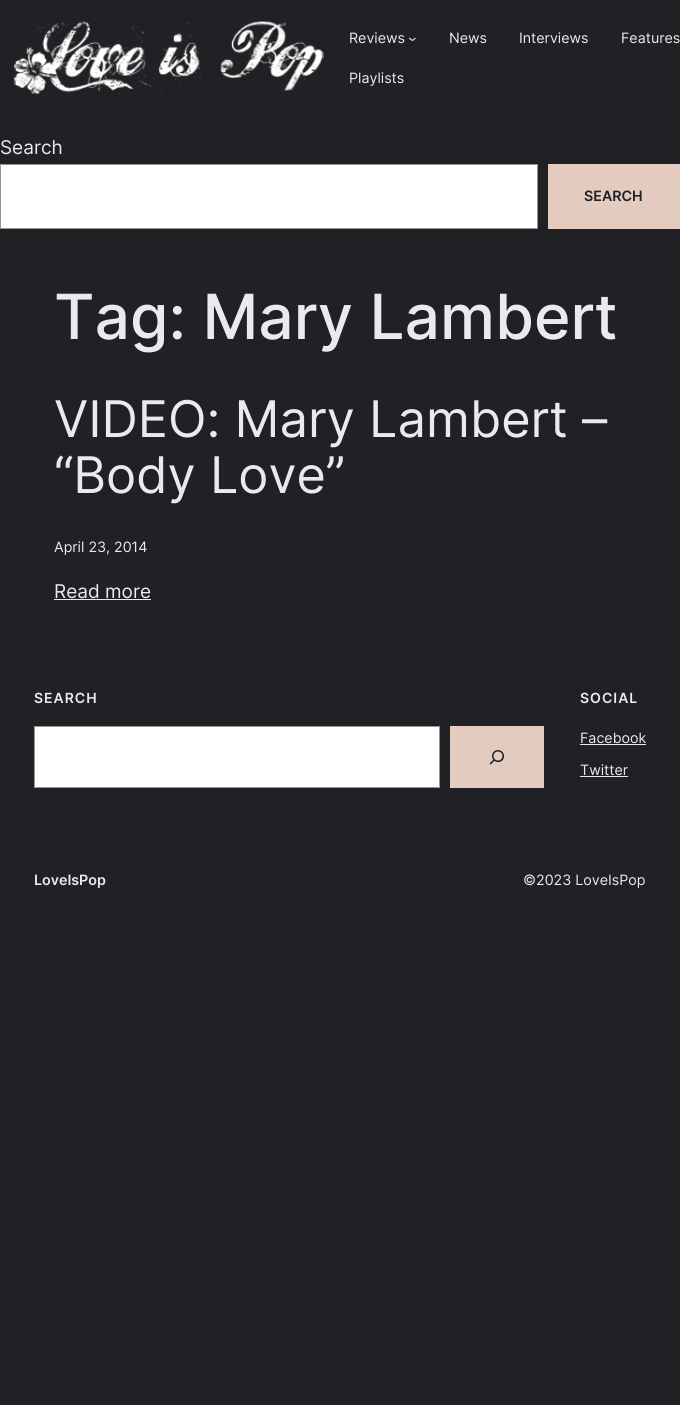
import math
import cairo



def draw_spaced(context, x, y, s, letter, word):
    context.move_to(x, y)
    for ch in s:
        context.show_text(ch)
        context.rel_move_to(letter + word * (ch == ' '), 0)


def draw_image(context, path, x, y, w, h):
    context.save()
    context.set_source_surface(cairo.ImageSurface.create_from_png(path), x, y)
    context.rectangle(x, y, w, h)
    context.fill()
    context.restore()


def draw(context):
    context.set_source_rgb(32 / 255, 33 / 255, 36 / 255)
    context.paint()
    draw_image(context, "images/1.png", 14, 21, 310, 74)
    context.new_path()
    context.move_to(409, 38)
    context.line_to(412.5, 40.5)
    context.line_to(415.5, 38)
    context.set_source_rgb(232 / 255, 234 / 255, 237 / 255)
    context.set_line_width(1.1)
    context.stroke()
    context.set_source_rgb(1, 1, 1)
    context.rectangle(0.5, 164.5, 537, 64)
    context.fill_preserve()
    context.set_source_rgb(148 / 255, 148 / 255, 148 / 255)
    context.set_line_width(1)
    context.stroke()
    context.set_source_rgb(227 / 255, 203 / 255, 192 / 255)
    context.rectangle(548, 164, 132, 65)
    context.fill()
    context.set_source_rgb(232 / 255, 234 / 255, 237 / 255)
    context.rectangle(54, 599, 97, 1)
    context.fill()
    context.set_source_rgb(1, 1, 1)
    context.rectangle(34.5, 726.5, 405, 61)
    context.fill_preserve()
    context.set_source_rgb(148 / 255, 148 / 255, 148 / 255)
    context.stroke()
    context.set_source_rgb(227 / 255, 203 / 255, 192 / 255)
    context.rectangle(450, 726, 94, 62)
    context.fill()
    draw_image(context, "images/2.png", 489, 750, 16, 15)
    context.set_source_rgb(232 / 255, 234 / 255, 237 / 255)
    context.rectangle(580, 744, 66, 1)
    context.fill()
    context.rectangle(580, 776, 48, 1)
    context.fill()
    context.select_font_face("Inter")
    context.set_font_size(14.25)
    context.move_to(349, 43)
    context.show_text("Reviews")
    context.move_to(449, 43)
    context.show_text("News")
    context.move_to(519, 43)
    context.show_text("Interviews")
    context.move_to(621, 43)
    context.show_text("Features")
    context.move_to(349, 83)
    context.show_text("Playlists")
    context.set_font_size(19)
    context.move_to(0, 154)
    context.show_text("Search")
    context.select_font_face("Inter SemiBold")
    context.set_font_size(14.25)
    context.set_source_rgb(32 / 255, 33 / 255, 36 / 255)
    context.move_to(584, 201)
    context.show_text("SEARCH")
    context.select_font_face("Inter Medium")
    context.set_font_size(62.25)
    context.set_source_rgb(232 / 255, 234 / 255, 237 / 255)
    context.move_to(54, 339)
    context.show_text("Tag: Mary Lambert")
    context.select_font_face("Inter")
    context.set_font_size(50.5)
    context.move_to(54, 437)
    context.show_text("VIDEO: Mary Lambert –")
    context.move_to(54, 493)
    context.show_text("“Body Love”")
    context.set_font_size(14.25)
    context.move_to(54, 552)
    context.show_text("April 23, 2014")
    context.set_font_size(19)
    context.move_to(54, 598)
    context.show_text("Read more")
    context.select_font_face("Inter SemiBold")
    context.set_font_size(14)
    draw_spaced(context, 34, 703, "SEARCH", 1, 0)
    draw_spaced(context, 580, 703, "SOCIAL", 1, 0)
    context.select_font_face("Inter")
    context.set_font_size(14.25)
    context.move_to(580, 743)
    context.show_text("Facebook")
    context.move_to(580, 775)
    context.show_text("Twitter")
    context.select_font_face("Inter SemiBold")
    context.move_to(34, 885)
    context.show_text("LoveIsPop")
    context.select_font_face("Inter")
    context.move_to(523, 885)
    context.show_text("©2023 LoveIsPop")


surface = cairo.ImageSurface(cairo.Format.RGB24, 680, 1405)
context = cairo.Context(surface)
options = cairo.FontOptions()
options.set_hint_metrics(cairo.HintMetrics.OFF)
options.set_hint_style(cairo.HintStyle.NONE)
context.set_font_options(options)
context.set_miter_limit(4)
draw(context)
surface.write_to_png("out.png")
